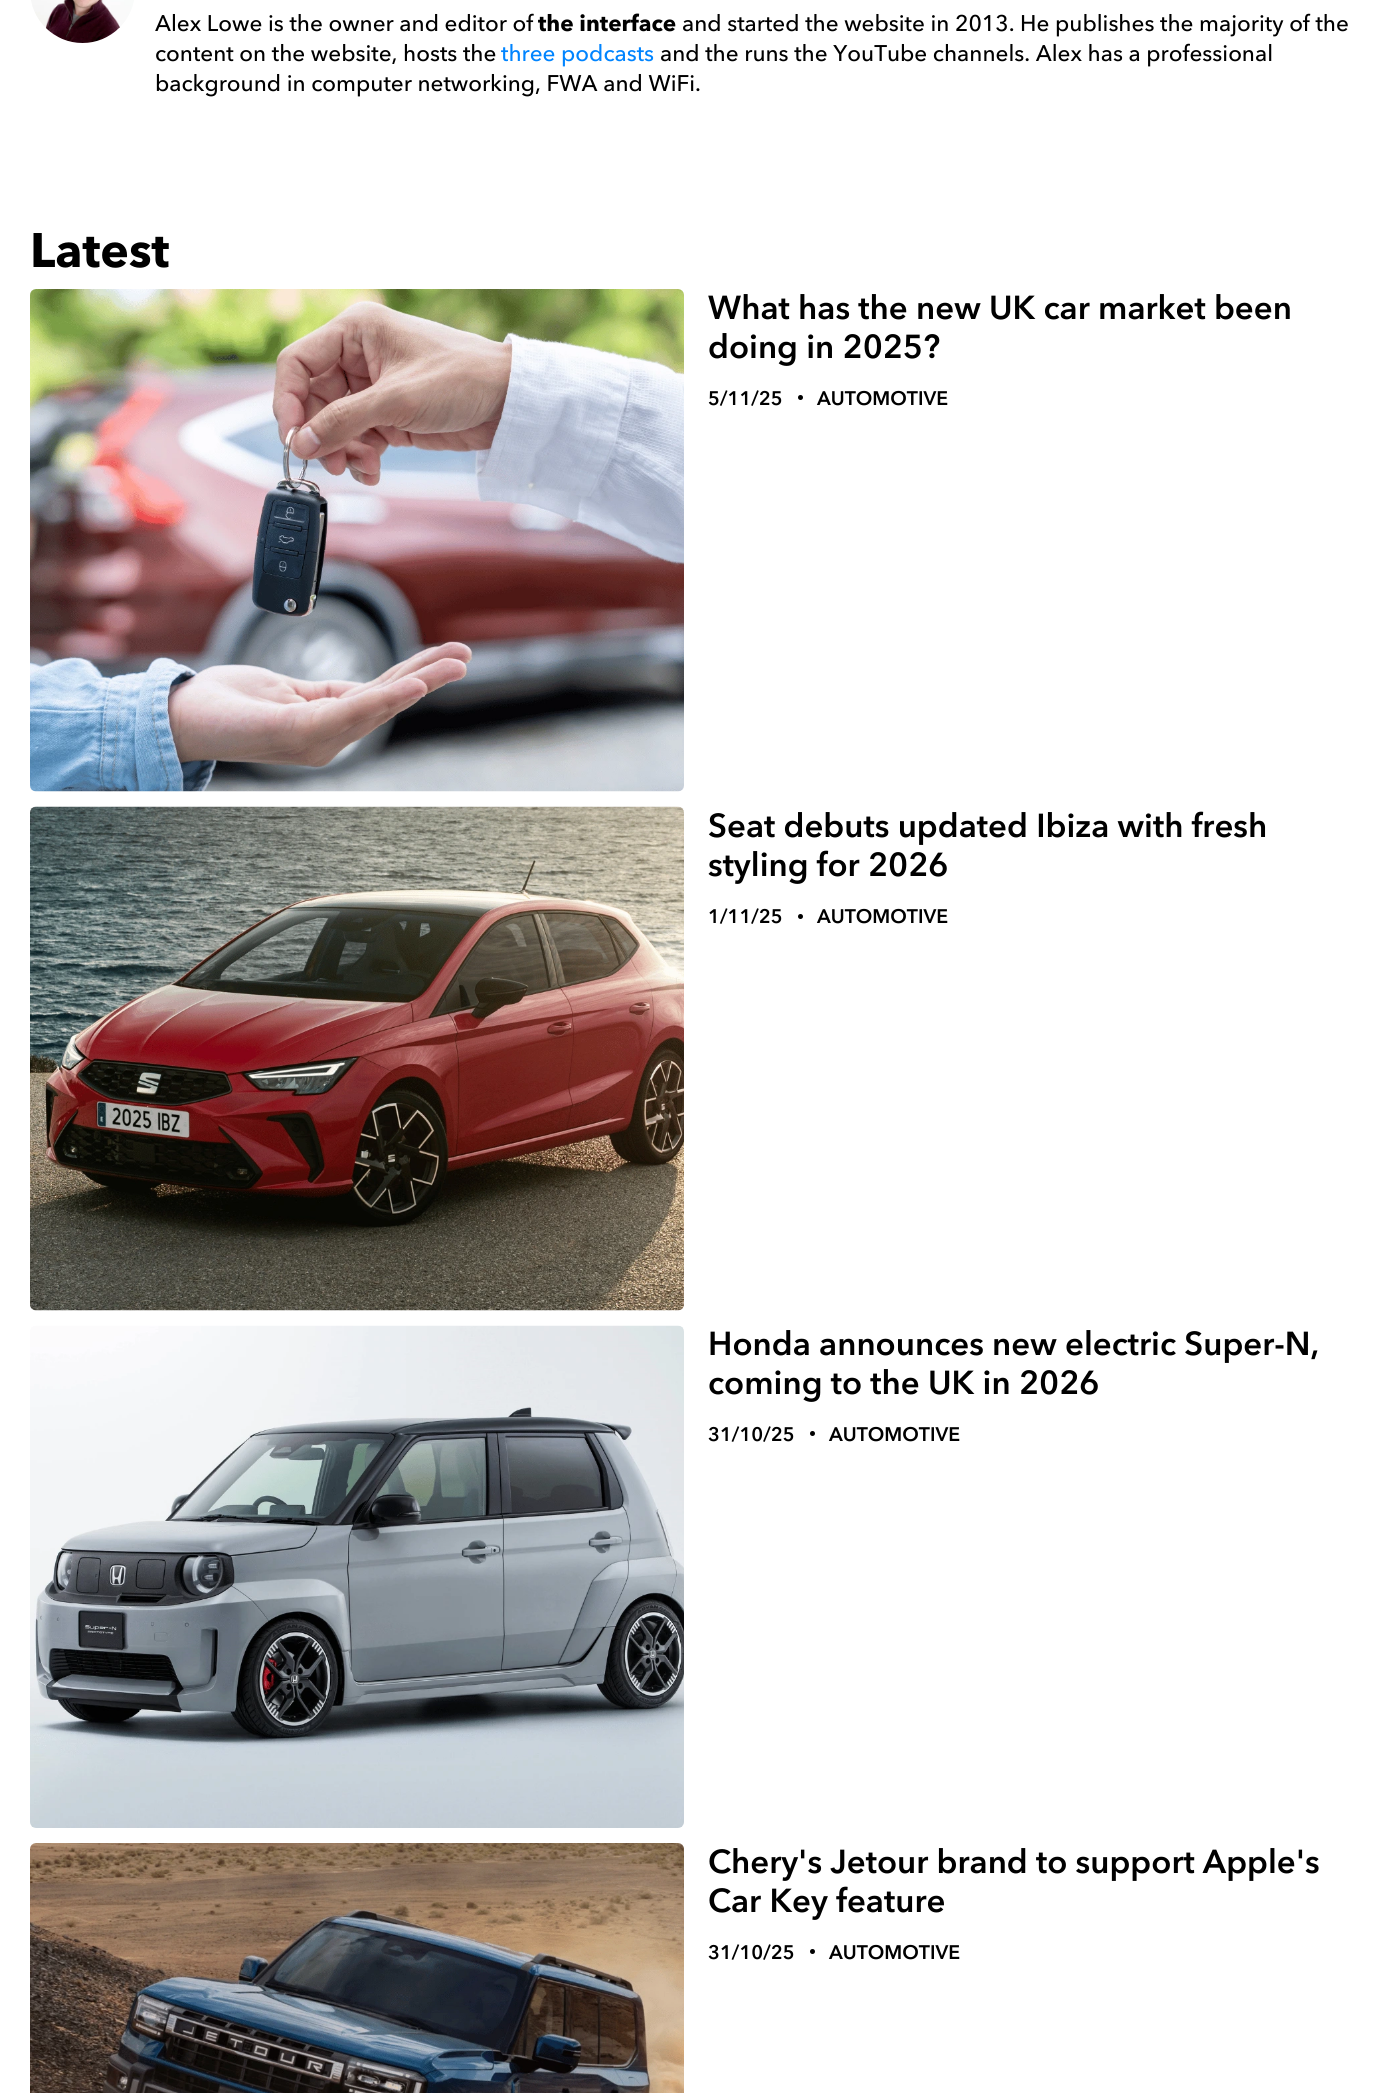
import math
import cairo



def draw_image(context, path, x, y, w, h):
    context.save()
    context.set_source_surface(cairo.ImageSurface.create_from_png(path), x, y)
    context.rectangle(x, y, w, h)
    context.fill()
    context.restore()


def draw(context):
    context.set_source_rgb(1, 1, 1)
    context.paint()
    draw_image(context, "images/1.png", 31, 0, 103, 43)
    draw_image(context, "images/2.png", 30, 289, 654, 503)
    context.set_source_rgb(0, 0, 0)
    context.arc(800.5, 397.5, 2.5, 0, 2 * math.pi)
    context.fill()
    draw_image(context, "images/3.png", 30, 806, 654, 505)
    context.arc(800.5, 916.5, 2.5, 0, 2 * math.pi)
    context.fill()
    draw_image(context, "images/4.png", 30, 1325, 654, 503)
    context.arc(812.5, 1433.5, 2.5, 0, 2 * math.pi)
    context.fill()
    draw_image(context, "images/5.png", 30, 1843, 654, 250)
    context.arc(812.5, 1951.5, 2.5, 0, 2 * math.pi)
    context.fill()
    context.select_font_face("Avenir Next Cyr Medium")
    context.set_font_size(22.5)
    context.move_to(155, 31)
    context.show_text("Alex Lowe is the owner and editor of")
    context.select_font_face("Avenir Next Cyr", cairo.FontSlant.NORMAL, cairo.FontWeight.BOLD)
    context.move_to(538, 31)
    context.show_text("the interface")
    context.select_font_face("Avenir Next Cyr Medium")
    context.move_to(682, 31)
    context.show_text("and started the website in 2013. He publishes the majority of the")
    context.move_to(155, 61)
    context.show_text("content on the website, hosts the")
    context.set_source_rgb(0, 132 / 255, 1)
    context.move_to(501, 61)
    context.show_text("three podcasts")
    context.set_source_rgb(0, 0, 0)
    context.move_to(660, 61)
    context.show_text("and the runs the YouTube channels. Alex has a professional")
    context.move_to(155, 91)
    context.show_text("background in computer networking, FWA and WiFi.")
    context.select_font_face("Avenir Next Cyr", cairo.FontSlant.NORMAL, cairo.FontWeight.BOLD)
    context.set_font_size(48)
    context.move_to(30, 267)
    context.show_text("Latest")
    context.select_font_face("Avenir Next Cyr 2", cairo.FontSlant.NORMAL, cairo.FontWeight.BOLD)
    context.set_font_size(33)
    context.move_to(708, 319)
    context.show_text("What has the new UK car market been")
    context.move_to(708, 358)
    context.show_text("doing in 2025?")
    context.set_font_size(19.5)
    context.move_to(708, 405)
    context.show_text("5/11/25")
    context.move_to(817, 405)
    context.show_text("AUTOMOTIVE")
    context.set_font_size(33)
    context.move_to(708, 837)
    context.show_text("Seat debuts updated Ibiza with fresh")
    context.move_to(708, 876)
    context.show_text("styling for 2026")
    context.set_font_size(19.5)
    context.move_to(708, 923)
    context.show_text("1/11/25")
    context.move_to(817, 923)
    context.show_text("AUTOMOTIVE")
    context.set_font_size(33)
    context.move_to(708, 1355)
    context.show_text("Honda announces new electric Super-N,")
    context.move_to(708, 1394)
    context.show_text("coming to the UK in 2026")
    context.set_font_size(19.5)
    context.move_to(708, 1441)
    context.show_text("31/10/25")
    context.move_to(829, 1441)
    context.show_text("AUTOMOTIVE")
    context.set_font_size(33)
    context.move_to(708, 1873)
    context.show_text("Chery's Jetour brand to support Apple's")
    context.move_to(708, 1912)
    context.show_text("Car Key feature")
    context.set_font_size(19.5)
    context.move_to(708, 1959)
    context.show_text("31/10/25")
    context.move_to(829, 1959)
    context.show_text("AUTOMOTIVE")


surface = cairo.ImageSurface(cairo.Format.RGB24, 1391, 2093)
context = cairo.Context(surface)
options = cairo.FontOptions()
options.set_hint_metrics(cairo.HintMetrics.OFF)
options.set_hint_style(cairo.HintStyle.NONE)
context.set_font_options(options)
context.set_miter_limit(4)
draw(context)
surface.write_to_png("out.png")
